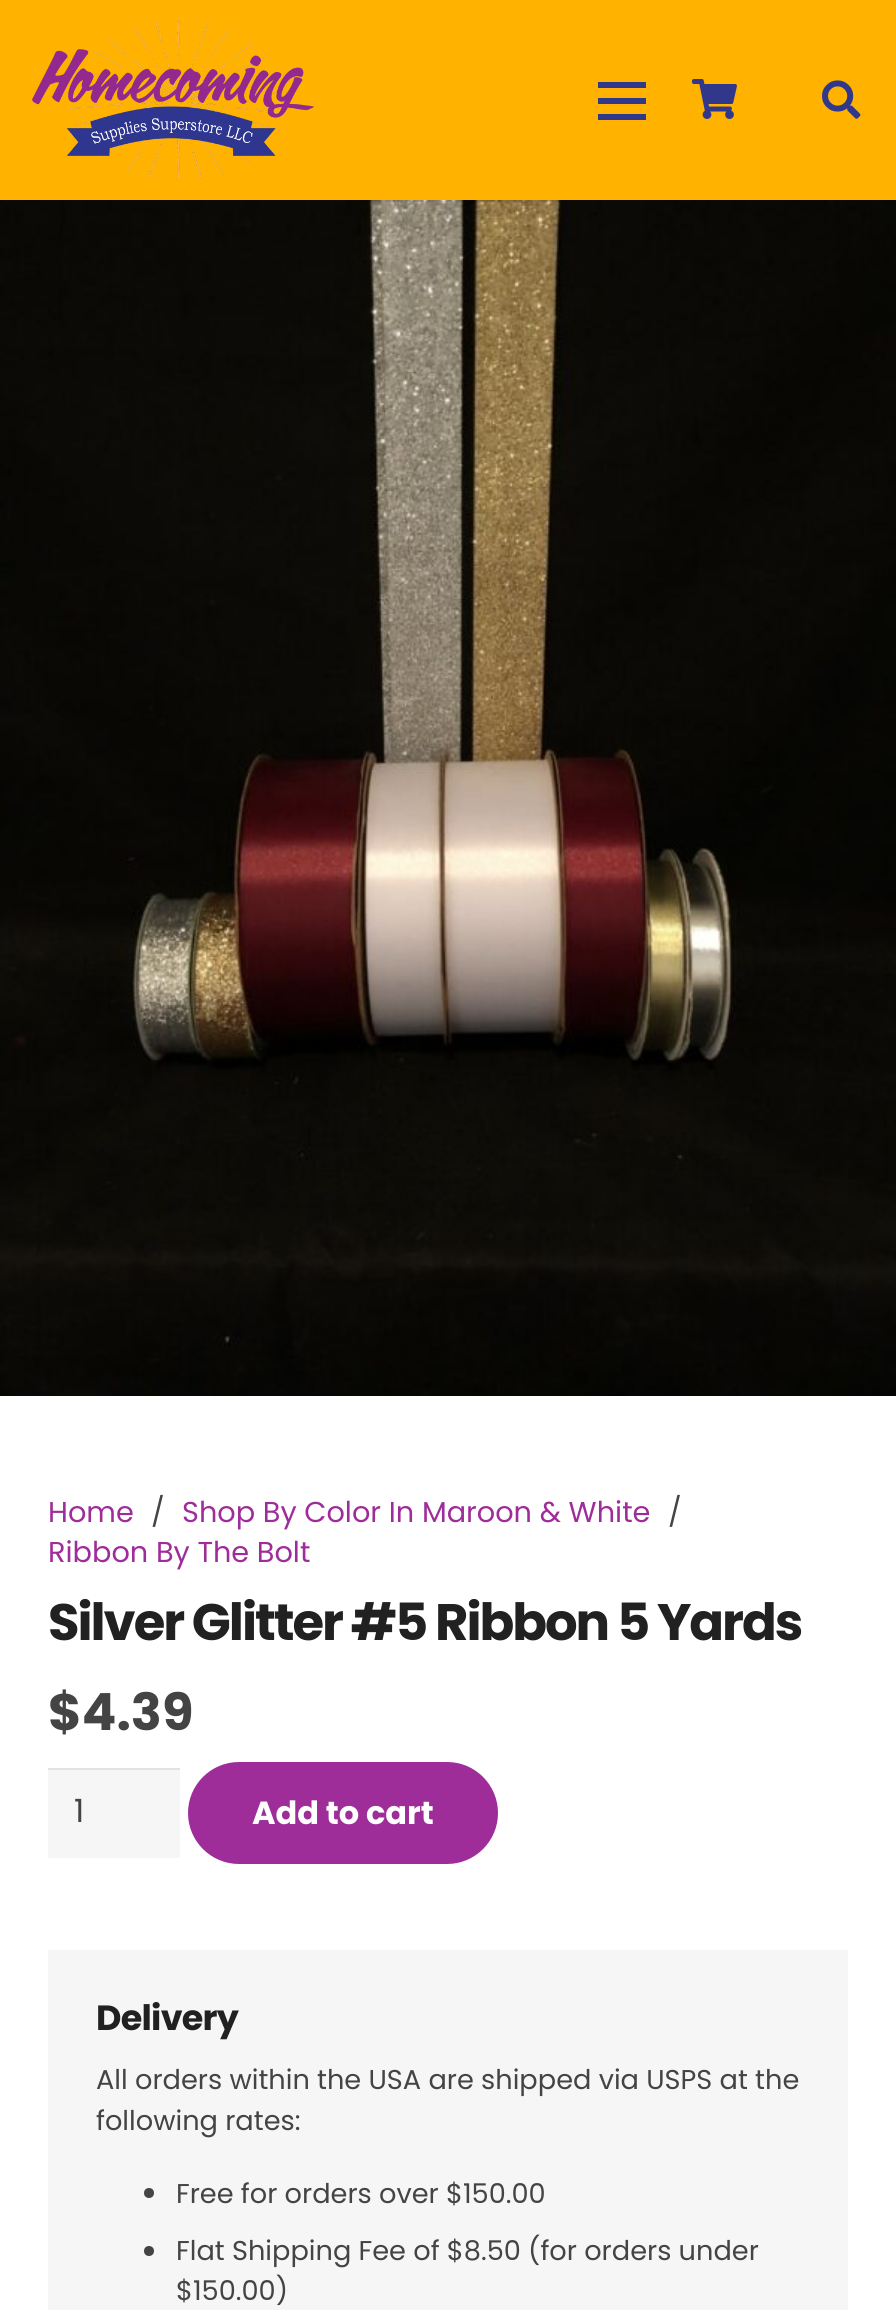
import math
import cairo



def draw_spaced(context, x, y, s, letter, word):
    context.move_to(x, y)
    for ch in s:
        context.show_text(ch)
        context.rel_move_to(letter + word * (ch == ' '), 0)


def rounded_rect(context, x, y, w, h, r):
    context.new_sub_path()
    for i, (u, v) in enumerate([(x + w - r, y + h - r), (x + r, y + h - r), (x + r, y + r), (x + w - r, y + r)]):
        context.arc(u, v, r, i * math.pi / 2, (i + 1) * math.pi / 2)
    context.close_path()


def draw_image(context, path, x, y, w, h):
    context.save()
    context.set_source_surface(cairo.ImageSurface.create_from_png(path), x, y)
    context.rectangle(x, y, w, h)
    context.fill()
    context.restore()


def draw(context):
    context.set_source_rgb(1, 1, 1)
    context.paint()
    draw_image(context, "images/4.png", 0, 200, 896, 1196)
    context.set_source_rgba(0, 0, 0, 0.08)
    context.rectangle(370, 200, 190, 2)
    context.fill()
    context.set_source_rgb(1, 179 / 255, 0)
    context.rectangle(0, 0, 896, 200)
    context.fill()
    draw_image(context, "images/1.png", 32, 20, 282, 160)
    context.set_source_rgb(49 / 255, 56 / 255, 140 / 255)
    context.rectangle(598, 98, 48, 6)
    context.fill()
    context.rectangle(598, 82, 48, 6)
    context.fill()
    context.rectangle(598, 114, 48, 6)
    context.fill()
    draw_image(context, "images/2.png", 692, 79, 45, 40)
    draw_image(context, "images/3.png", 822, 80, 39, 39)
    context.set_source_rgb(246 / 255, 246 / 255, 246 / 255)
    context.rectangle(48, 1770, 132, 88)
    context.fill()
    context.set_source_rgb(226 / 255, 226 / 255, 226 / 255)
    context.rectangle(48, 1768, 132, 2)
    context.fill()
    context.set_source_rgb(158 / 255, 45 / 255, 154 / 255)
    rounded_rect(context, 188, 1762, 310, 102, 51)
    context.fill()
    context.set_source_rgb(246 / 255, 246 / 255, 246 / 255)
    context.rectangle(48, 1950, 800, 360)
    context.fill()
    context.set_source_rgb(68 / 255, 68 / 255, 68 / 255)
    context.arc(149, 2193, 5, 0, 2 * math.pi)
    context.fill()
    context.arc(149, 2251, 5, 0, 2 * math.pi)
    context.fill()
    context.select_font_face("Poppins")
    context.set_font_size(28.75)
    context.set_source_rgb(158 / 255, 45 / 255, 154 / 255)
    context.move_to(48, 1522)
    context.show_text("Home")
    context.set_source_rgb(68 / 255, 68 / 255, 68 / 255)
    context.move_to(151, 1522)
    context.show_text("/")
    context.set_source_rgb(158 / 255, 45 / 255, 154 / 255)
    context.move_to(182, 1522)
    context.show_text("Shop By Color In Maroon & White")
    context.set_source_rgb(68 / 255, 68 / 255, 68 / 255)
    context.move_to(668, 1522)
    context.show_text("/")
    context.set_source_rgb(158 / 255, 45 / 255, 154 / 255)
    context.move_to(48, 1562)
    context.show_text("Ribbon By The Bolt")
    context.select_font_face("Poppins", cairo.FontSlant.NORMAL, cairo.FontWeight.BOLD)
    context.set_font_size(51.25)
    context.set_source_rgb(33 / 255, 33 / 255, 33 / 255)
    draw_spaced(context, 48, 1640, "Silver Glitter #5 Ribbon 5 Yards", -2.05, 0)
    context.set_source_rgb(68 / 255, 68 / 255, 68 / 255)
    context.move_to(48, 1730)
    context.show_text("$4.39")
    context.select_font_face("Poppins")
    context.set_font_size(32)
    context.move_to(74, 1822)
    context.show_text("1")
    context.select_font_face("Poppins", cairo.FontSlant.NORMAL, cairo.FontWeight.BOLD)
    context.set_source_rgb(1, 1, 1)
    context.move_to(252, 1824)
    context.show_text("Add to cart")
    context.set_font_size(35)
    context.set_source_rgb(33 / 255, 33 / 255, 33 / 255)
    draw_spaced(context, 96, 2030, "Delivery", -0.75, 0)
    context.select_font_face("Poppins")
    context.set_font_size(27.2)
    context.set_source_rgb(68 / 255, 68 / 255, 68 / 255)
    context.move_to(96, 2089)
    context.show_text("All orders within the USA are shipped via USPS at the")
    context.move_to(96, 2130)
    context.show_text("following rates:")
    context.move_to(176, 2203)
    context.show_text("Free for orders over $150.00")
    context.move_to(176, 2260)
    context.show_text("Flat Shipping Fee of $8.50 (for orders under")
    context.move_to(176, 2300)
    context.show_text("$150.00)")


surface = cairo.ImageSurface(cairo.Format.RGB24, 896, 2310)
context = cairo.Context(surface)
options = cairo.FontOptions()
options.set_hint_metrics(cairo.HintMetrics.OFF)
options.set_hint_style(cairo.HintStyle.NONE)
context.set_font_options(options)
context.set_miter_limit(4)
draw(context)
surface.write_to_png("out.png")
